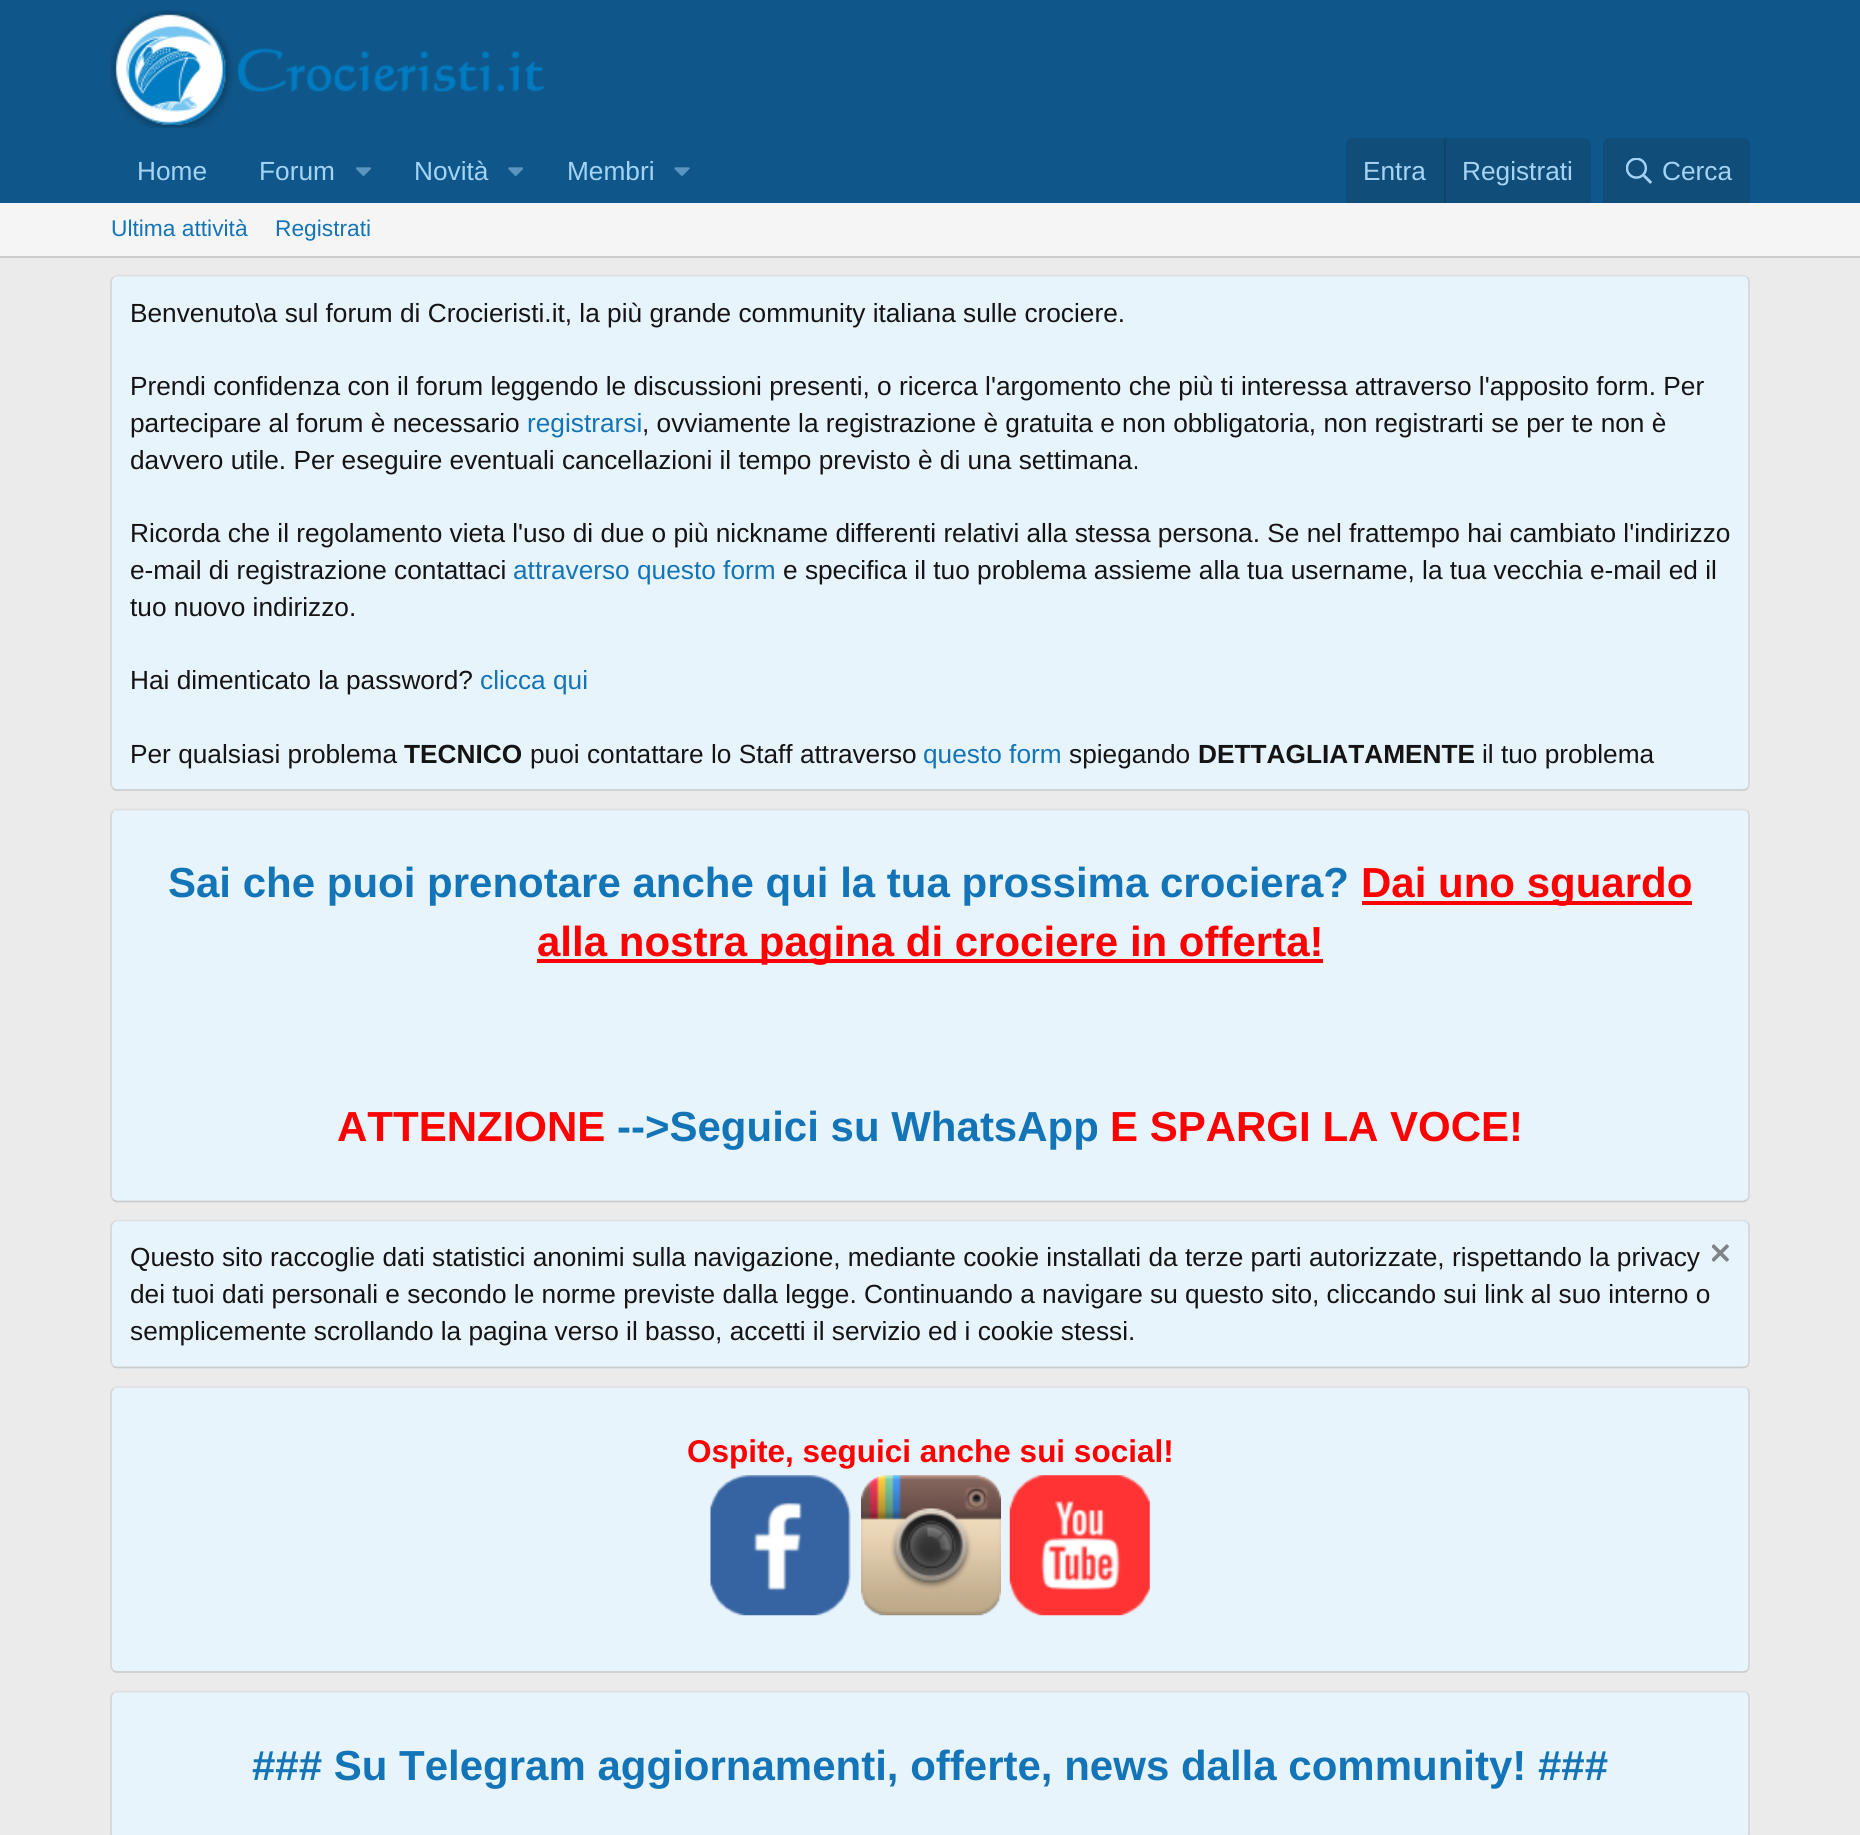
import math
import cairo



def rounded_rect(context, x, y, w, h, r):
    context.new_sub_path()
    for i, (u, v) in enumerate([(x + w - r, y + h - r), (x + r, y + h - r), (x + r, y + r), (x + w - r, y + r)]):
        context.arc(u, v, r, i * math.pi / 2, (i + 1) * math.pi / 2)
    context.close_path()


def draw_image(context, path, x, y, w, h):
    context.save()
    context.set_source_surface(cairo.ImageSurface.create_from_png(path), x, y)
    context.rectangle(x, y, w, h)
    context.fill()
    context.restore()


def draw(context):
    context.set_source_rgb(235 / 255, 235 / 255, 235 / 255)
    context.paint()
    context.set_source_rgb(15 / 255, 87 / 255, 138 / 255)
    context.rectangle(0, 0, 1860, 203)
    context.fill()
    draw_image(context, "images/1.png", 110, 10, 435, 118)
    draw_image(context, "images/2.png", 355, 167, 16, 9)
    draw_image(context, "images/3.png", 508, 167, 15, 9)
    draw_image(context, "images/4.png", 674, 167, 16, 9)
    context.set_source_rgb(16 / 255, 77 / 255, 120 / 255)
    context.new_path()
    context.move_to(1353, 138)
    context.line_to(1584, 138)
    context.curve_to(1588, 138, 1591, 141, 1591, 145)
    context.line_to(1591, 203)
    context.line_to(1346, 203)
    context.line_to(1346, 145)
    context.curve_to(1346, 141, 1349, 138, 1353, 138)
    context.close_path()
    context.fill()
    context.set_source_rgb(17 / 255, 68 / 255, 105 / 255)
    context.rectangle(1444, 138, 2, 65)
    context.fill()
    context.set_source_rgb(16 / 255, 77 / 255, 120 / 255)
    context.new_path()
    context.move_to(1610, 138)
    context.line_to(1743, 138)
    context.curve_to(1747, 138, 1750, 141, 1750, 145)
    context.line_to(1750, 203)
    context.line_to(1603, 203)
    context.line_to(1603, 145)
    context.curve_to(1603, 141, 1606, 138, 1610, 138)
    context.close_path()
    context.fill()
    draw_image(context, "images/5.png", 1626, 158, 26, 26)
    context.set_source_rgb(245 / 255, 245 / 255, 245 / 255)
    context.rectangle(0, 203, 1860, 53)
    context.fill()
    context.set_source_rgb(204 / 255, 204 / 255, 204 / 255)
    context.rectangle(0, 256, 1860, 2)
    context.fill()
    context.set_source_rgb(232 / 255, 244 / 255, 252 / 255)
    rounded_rect(context, 110, 275, 1640, 516, 7)
    context.fill()
    context.new_path()
    context.move_to(113, 277.5)
    context.curve_to(114, 276.5, 115.5, 275.5, 117, 275.5)
    context.line_to(1743, 275.5)
    context.curve_to(1744.5, 275.5, 1746, 276.5, 1747.5, 277.5)
    context.set_source_rgb(224 / 255, 224 / 255, 224 / 255)
    context.set_line_width(1.8)
    context.stroke()
    context.new_path()
    context.move_to(1747.5, 277.5)
    context.curve_to(1748.5, 278.5, 1749, 280, 1749, 282)
    context.line_to(1749, 784)
    context.curve_to(1749, 785.5, 1748.5, 787, 1747.5, 788.5)
    context.set_source_rgb(214 / 255, 214 / 255, 214 / 255)
    context.stroke()
    context.new_path()
    context.move_to(1747.5, 788.5)
    context.curve_to(1746, 789.5, 1744.5, 790, 1743, 790)
    context.line_to(117, 790)
    context.curve_to(115.5, 790, 114, 789.5, 113, 788.5)
    context.set_source_rgb(204 / 255, 204 / 255, 204 / 255)
    context.stroke()
    context.new_path()
    context.move_to(113, 788.5)
    context.curve_to(112, 787, 111, 785.5, 111, 784)
    context.line_to(111, 282)
    context.curve_to(111, 280, 112, 278.5, 113, 277.5)
    context.set_source_rgb(214 / 255, 214 / 255, 214 / 255)
    context.stroke()
    context.set_source_rgb(232 / 255, 244 / 255, 252 / 255)
    rounded_rect(context, 110, 809, 1640, 393, 7)
    context.fill()
    context.new_path()
    context.move_to(113, 811)
    context.curve_to(114, 810, 115.5, 809.5, 117, 809.5)
    context.line_to(1743, 809.5)
    context.curve_to(1744.5, 809.5, 1746, 810, 1747.5, 811)
    context.set_source_rgb(224 / 255, 224 / 255, 224 / 255)
    context.stroke()
    context.new_path()
    context.move_to(1747.5, 811)
    context.curve_to(1748.5, 812.5, 1749, 814, 1749, 815.5)
    context.line_to(1749, 1195)
    context.curve_to(1749, 1197, 1748.5, 1198.5, 1747.5, 1199.5)
    context.set_source_rgb(214 / 255, 214 / 255, 214 / 255)
    context.stroke()
    context.new_path()
    context.move_to(1747.5, 1199.5)
    context.curve_to(1746, 1200.5, 1744.5, 1201.5, 1743, 1201.5)
    context.line_to(117, 1201.5)
    context.curve_to(115.5, 1201.5, 114, 1200.5, 113, 1199.5)
    context.set_source_rgb(204 / 255, 204 / 255, 204 / 255)
    context.stroke()
    context.new_path()
    context.move_to(113, 1199.5)
    context.curve_to(112, 1198.5, 111, 1197, 111, 1195)
    context.line_to(111, 815.5)
    context.curve_to(111, 814, 112, 812.5, 113, 811)
    context.set_source_rgb(214 / 255, 214 / 255, 214 / 255)
    context.stroke()
    context.set_source_rgb(1, 0, 0)
    context.rectangle(1362, 901, 330, 4)
    context.fill()
    context.rectangle(537, 959, 786, 4)
    context.fill()
    context.set_source_rgb(232 / 255, 244 / 255, 252 / 255)
    rounded_rect(context, 110, 1220, 1640, 149, 7)
    context.fill()
    context.new_path()
    context.move_to(113, 1222.5)
    context.curve_to(114, 1221.5, 115.5, 1220.5, 117, 1220.5)
    context.line_to(1743, 1220.5)
    context.curve_to(1744.5, 1220.5, 1746, 1221.5, 1747.5, 1222.5)
    context.set_source_rgb(224 / 255, 224 / 255, 224 / 255)
    context.stroke()
    context.new_path()
    context.move_to(1747.5, 1222.5)
    context.curve_to(1748.5, 1223.5, 1749, 1225, 1749, 1227)
    context.line_to(1749, 1361.5)
    context.curve_to(1749, 1363, 1748.5, 1364.5, 1747.5, 1366)
    context.set_source_rgb(214 / 255, 214 / 255, 214 / 255)
    context.stroke()
    context.new_path()
    context.move_to(1747.5, 1366)
    context.curve_to(1746, 1367, 1744.5, 1367.5, 1743, 1367.5)
    context.line_to(117, 1367.5)
    context.curve_to(115.5, 1367.5, 114, 1367, 113, 1366)
    context.set_source_rgb(204 / 255, 204 / 255, 204 / 255)
    context.stroke()
    context.new_path()
    context.move_to(113, 1366)
    context.curve_to(112, 1364.5, 111, 1363, 111, 1361.5)
    context.line_to(111, 1227)
    context.curve_to(111, 1225, 112, 1223.5, 113, 1222.5)
    context.set_source_rgb(214 / 255, 214 / 255, 214 / 255)
    context.stroke()
    draw_image(context, "images/6.png", 1712, 1244, 17, 18)
    context.set_source_rgb(232 / 255, 244 / 255, 252 / 255)
    rounded_rect(context, 110, 1386, 1640, 287, 7)
    context.fill()
    context.new_path()
    context.move_to(113, 1388.5)
    context.curve_to(114, 1387.5, 115.5, 1387, 117, 1387)
    context.line_to(1743, 1387)
    context.curve_to(1744.5, 1387, 1746, 1387.5, 1747.5, 1388.5)
    context.set_source_rgb(224 / 255, 224 / 255, 224 / 255)
    context.stroke()
    context.new_path()
    context.move_to(1747.5, 1388.5)
    context.curve_to(1748.5, 1390, 1749, 1391.5, 1749, 1393)
    context.line_to(1749, 1666)
    context.curve_to(1749, 1667.5, 1748.5, 1669, 1747.5, 1670.5)
    context.set_source_rgb(214 / 255, 214 / 255, 214 / 255)
    context.stroke()
    context.new_path()
    context.move_to(1747.5, 1670.5)
    context.curve_to(1746, 1671.5, 1744.5, 1672, 1743, 1672)
    context.line_to(117, 1672)
    context.curve_to(115.5, 1672, 114, 1671.5, 113, 1670.5)
    context.set_source_rgb(204 / 255, 204 / 255, 204 / 255)
    context.stroke()
    context.new_path()
    context.move_to(113, 1670.5)
    context.curve_to(112, 1669, 111, 1667.5, 111, 1666)
    context.line_to(111, 1393)
    context.curve_to(111, 1391.5, 112, 1390, 113, 1388.5)
    context.set_source_rgb(214 / 255, 214 / 255, 214 / 255)
    context.stroke()
    draw_image(context, "images/7.png", 710, 1475, 141, 141)
    draw_image(context, "images/8.png", 861, 1475, 140, 141)
    draw_image(context, "images/9.png", 1009, 1475, 141, 141)
    context.set_source_rgb(232 / 255, 244 / 255, 252 / 255)
    rounded_rect(context, 110, 1691, 1640, 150, 7)
    context.fill()
    context.new_path()
    context.move_to(113, 1693)
    context.curve_to(114, 1692, 115.5, 1691.5, 117, 1691.5)
    context.line_to(1743, 1691.5)
    context.curve_to(1744.5, 1691.5, 1746, 1692, 1747.5, 1693)
    context.set_source_rgb(224 / 255, 224 / 255, 224 / 255)
    context.stroke()
    context.new_path()
    context.move_to(1747.5, 1693)
    context.curve_to(1748.5, 1694.5, 1749, 1696, 1749, 1697.5)
    context.line_to(1749, 1834)
    context.curve_to(1749, 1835.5, 1748.5, 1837, 1747.5, 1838.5)
    context.set_source_rgb(214 / 255, 214 / 255, 214 / 255)
    context.stroke()
    context.new_path()
    context.move_to(113, 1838.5)
    context.curve_to(112, 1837, 111, 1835.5, 111, 1834)
    context.line_to(111, 1697.5)
    context.curve_to(111, 1696, 112, 1694.5, 113, 1693)
    context.stroke()
    context.select_font_face("Liberation Sans")
    context.set_font_size(26.25)
    context.set_source_rgb(163 / 255, 212 / 255, 245 / 255)
    context.move_to(137, 180)
    context.show_text("Home")
    context.move_to(259, 180)
    context.show_text("Forum")
    context.move_to(414, 180)
    context.show_text("Novità")
    context.move_to(567, 180)
    context.show_text("Membri")
    context.move_to(1363, 180)
    context.show_text("Entra")
    context.move_to(1462, 180)
    context.show_text("Registrati")
    context.move_to(1662, 180)
    context.show_text("Cerca")
    context.set_font_size(22.75)
    context.set_source_rgb(20 / 255, 116 / 255, 184 / 255)
    context.move_to(111, 236)
    context.show_text("Ultima attività")
    context.move_to(275, 236)
    context.show_text("Registrati")
    context.set_font_size(26.25)
    context.set_source_rgb(20 / 255, 20 / 255, 20 / 255)
    context.move_to(130, 322)
    context.show_text("Benvenuto\\a sul forum di Crocieristi.it, la più grande community italiana sulle crociere.")
    context.move_to(130, 395)
    context.show_text("Prendi confidenza con il forum leggendo le discussioni presenti, o ricerca l'argomento che più ti interessa attraverso l'apposito form. Per")
    context.move_to(130, 432)
    context.show_text("partecipare al forum è necessario")
    context.set_source_rgb(20 / 255, 116 / 255, 184 / 255)
    context.move_to(527, 432)
    context.show_text("registrarsi")
    context.set_source_rgb(20 / 255, 20 / 255, 20 / 255)
    context.move_to(642, 432)
    context.show_text(", ovviamente la registrazione è gratuita e non obbligatoria, non registrarti se per te non è")
    context.move_to(130, 469)
    context.show_text("davvero utile. Per eseguire eventuali cancellazioni il tempo previsto è di una settimana.")
    context.move_to(130, 542)
    context.show_text("Ricorda che il regolamento vieta l'uso di due o più nickname differenti relativi alla stessa persona. Se nel frattempo hai cambiato l'indirizzo")
    context.move_to(130, 579)
    context.show_text("e-mail di registrazione contattaci")
    context.set_source_rgb(20 / 255, 116 / 255, 184 / 255)
    context.move_to(513, 579)
    context.show_text("attraverso questo form")
    context.set_source_rgb(20 / 255, 20 / 255, 20 / 255)
    context.move_to(783, 579)
    context.show_text("e specifica il tuo problema assieme alla tua username, la tua vecchia e-mail ed il")
    context.move_to(130, 616)
    context.show_text("tuo nuovo indirizzo.")
    context.move_to(130, 689)
    context.show_text("Hai dimenticato la password?")
    context.set_source_rgb(20 / 255, 116 / 255, 184 / 255)
    context.move_to(480, 689)
    context.show_text("clicca qui")
    context.set_source_rgb(20 / 255, 20 / 255, 20 / 255)
    context.move_to(130, 763)
    context.show_text("Per qualsiasi problema")
    context.select_font_face("Liberation Sans", cairo.FontSlant.NORMAL, cairo.FontWeight.BOLD)
    context.move_to(404, 763)
    context.show_text("TECNICO")
    context.select_font_face("Liberation Sans")
    context.move_to(530, 763)
    context.show_text("puoi contattare lo Staff attraverso")
    context.set_source_rgb(20 / 255, 116 / 255, 184 / 255)
    context.move_to(923, 763)
    context.show_text("questo form")
    context.set_source_rgb(20 / 255, 20 / 255, 20 / 255)
    context.move_to(1069, 763)
    context.show_text("spiegando")
    context.select_font_face("Liberation Sans", cairo.FontSlant.NORMAL, cairo.FontWeight.BOLD)
    context.move_to(1198, 763)
    context.show_text("DETTAGLIATAMENTE")
    context.select_font_face("Liberation Sans")
    context.move_to(1482, 763)
    context.show_text("il tuo problema")
    context.select_font_face("Liberation Sans", cairo.FontSlant.NORMAL, cairo.FontWeight.BOLD)
    context.set_font_size(42)
    context.set_source_rgb(20 / 255, 116 / 255, 184 / 255)
    context.move_to(168, 897)
    context.show_text("Sai che puoi prenotare anche qui la tua prossima crociera?")
    context.set_source_rgb(1, 0, 0)
    context.move_to(1361, 897)
    context.show_text("Dai uno sguardo")
    context.move_to(537, 956)
    context.show_text("alla nostra pagina di crociere in offerta!")
    context.move_to(337, 1141)
    context.show_text("ATTENZIONE")
    context.set_source_rgb(20 / 255, 116 / 255, 184 / 255)
    context.move_to(617, 1141)
    context.show_text("-->Seguici su WhatsApp")
    context.set_source_rgb(1, 0, 0)
    context.move_to(1110, 1141)
    context.show_text("E SPARGI LA VOCE!")
    context.select_font_face("Liberation Sans")
    context.set_font_size(26.25)
    context.set_source_rgb(20 / 255, 20 / 255, 20 / 255)
    context.move_to(130, 1266)
    context.show_text("Questo sito raccoglie dati statistici anonimi sulla navigazione, mediante cookie installati da terze parti autorizzate, rispettando la privacy")
    context.move_to(130, 1303)
    context.show_text("dei tuoi dati personali e secondo le norme previste dalla legge. Continuando a navigare su questo sito, cliccando sui link al suo interno o")
    context.move_to(130, 1340)
    context.show_text("semplicemente scrollando la pagina verso il basso, accetti il servizio ed i cookie stessi.")
    context.select_font_face("Liberation Sans", cairo.FontSlant.NORMAL, cairo.FontWeight.BOLD)
    context.set_font_size(31.5)
    context.set_source_rgb(1, 0, 0)
    context.move_to(687, 1462)
    context.show_text("Ospite, seguici anche sui social!")
    context.set_font_size(42)
    context.set_source_rgb(20 / 255, 116 / 255, 184 / 255)
    context.move_to(252, 1780)
    context.show_text("### Su Telegram aggiornamenti, offerte, news dalla community! ###")


surface = cairo.ImageSurface(cairo.Format.RGB24, 1860, 1835)
context = cairo.Context(surface)
options = cairo.FontOptions()
options.set_hint_metrics(cairo.HintMetrics.OFF)
options.set_hint_style(cairo.HintStyle.NONE)
context.set_font_options(options)
context.set_miter_limit(4)
draw(context)
surface.write_to_png("out.png")
